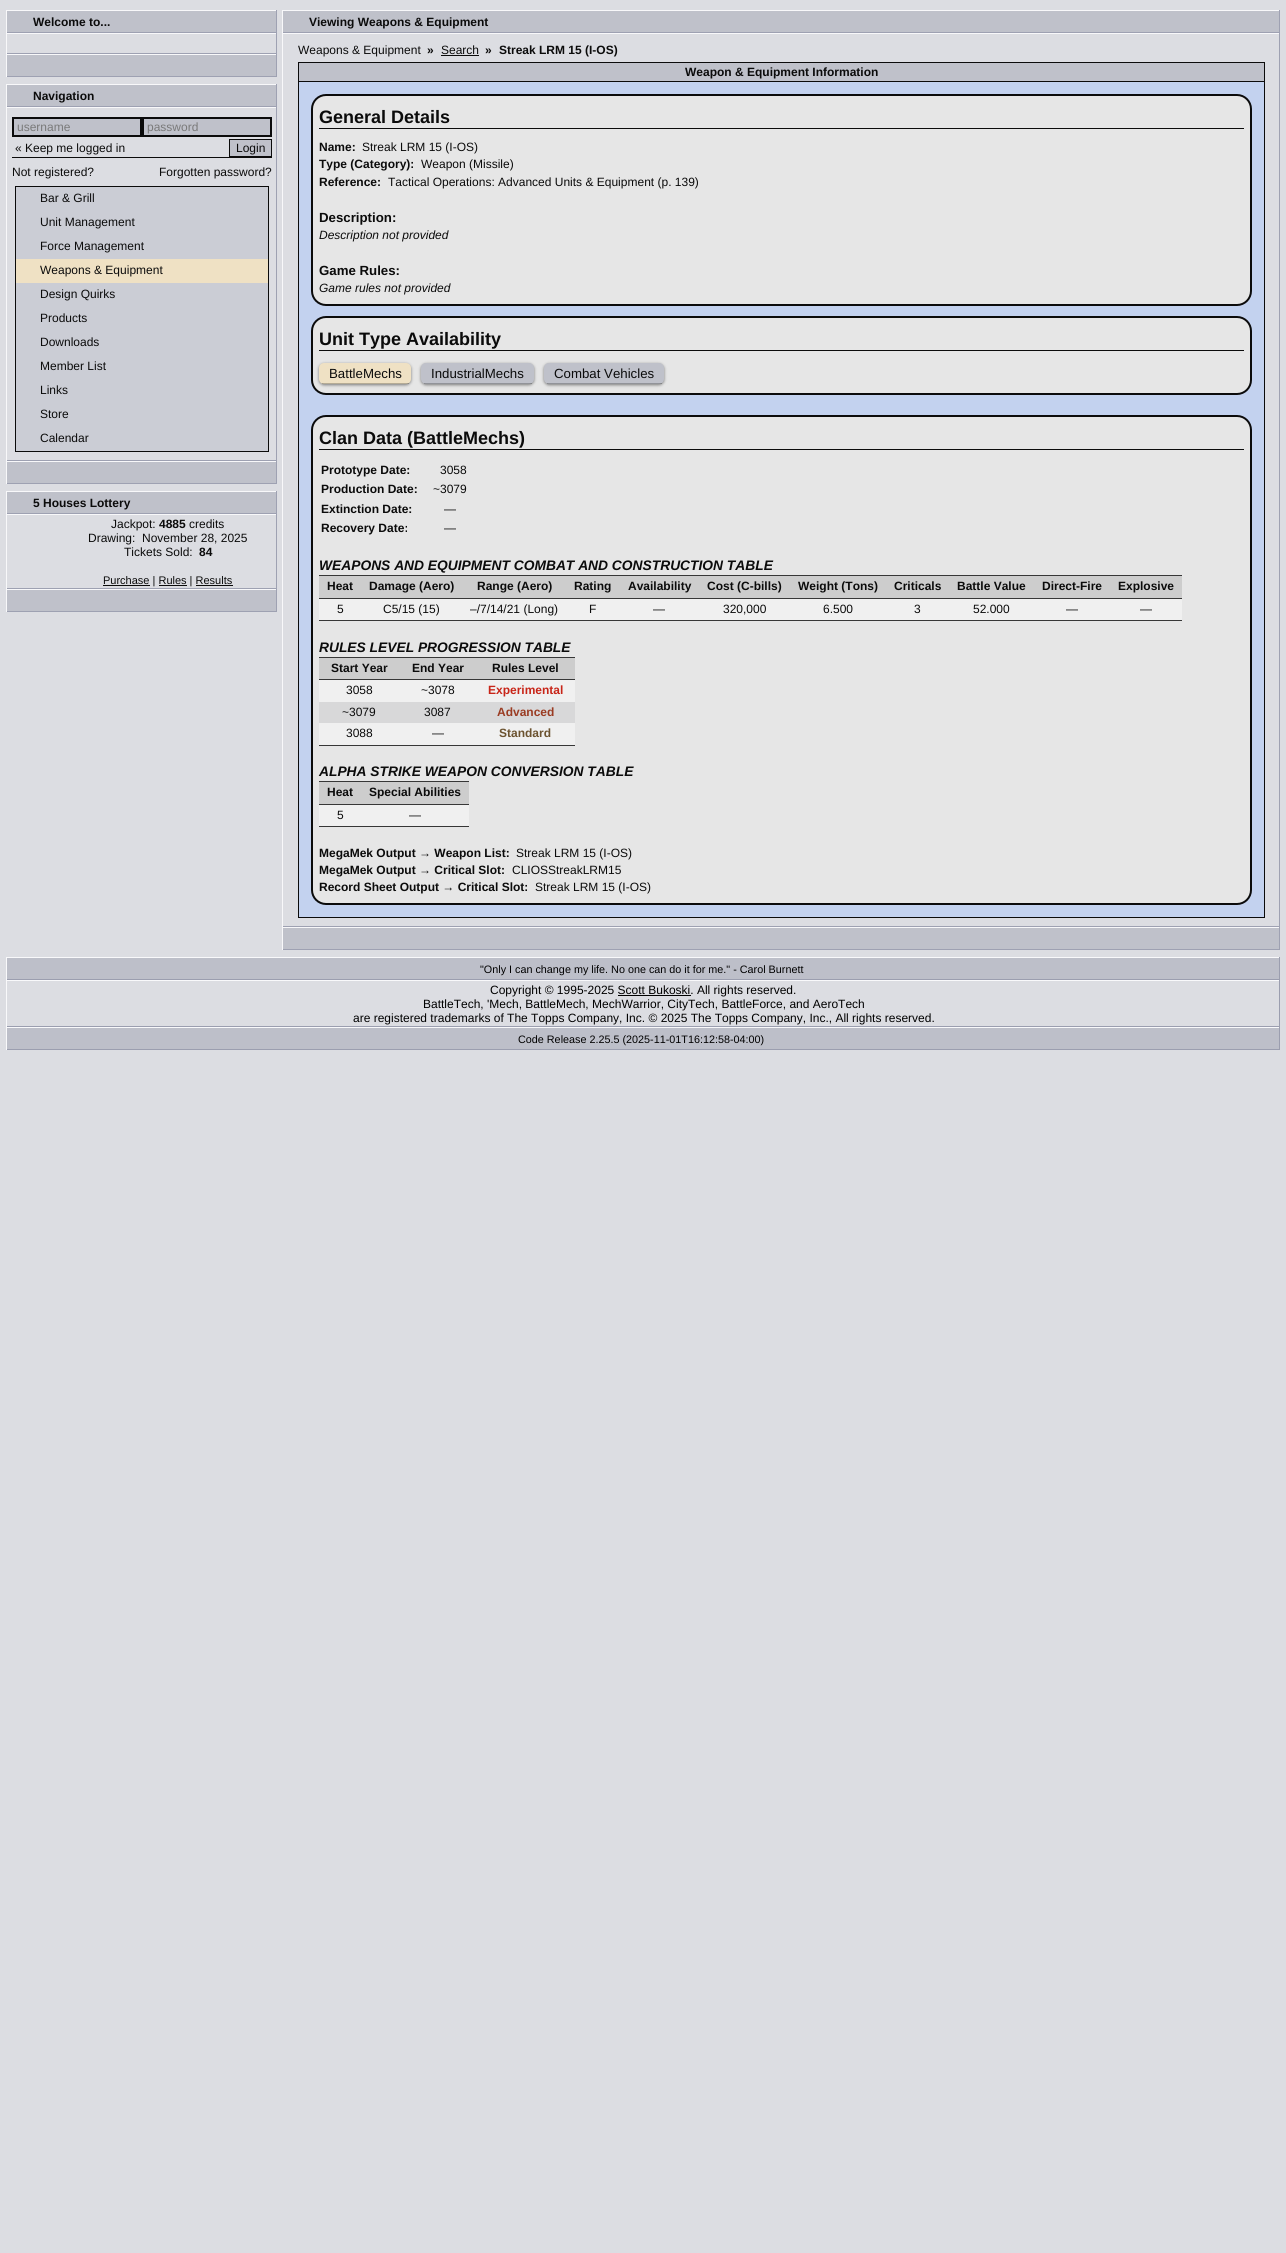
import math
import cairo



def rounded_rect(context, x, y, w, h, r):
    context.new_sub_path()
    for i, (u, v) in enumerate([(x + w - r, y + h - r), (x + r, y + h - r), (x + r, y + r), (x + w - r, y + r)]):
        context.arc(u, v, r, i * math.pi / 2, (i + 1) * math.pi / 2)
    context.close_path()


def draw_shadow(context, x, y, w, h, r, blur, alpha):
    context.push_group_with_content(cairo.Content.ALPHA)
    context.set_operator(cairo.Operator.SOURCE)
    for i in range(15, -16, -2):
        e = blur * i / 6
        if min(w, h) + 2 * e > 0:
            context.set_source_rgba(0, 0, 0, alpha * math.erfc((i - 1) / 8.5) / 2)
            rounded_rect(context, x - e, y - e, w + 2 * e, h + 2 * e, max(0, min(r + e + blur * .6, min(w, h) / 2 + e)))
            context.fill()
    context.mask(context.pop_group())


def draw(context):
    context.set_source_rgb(220 / 255, 221 / 255, 226 / 255)
    context.paint()
    context.set_source_rgb(191 / 255, 193 / 255, 202 / 255)
    context.rectangle(7, 11, 269, 21)
    context.fill()
    context.set_source_rgb(248 / 255, 248 / 255, 250 / 255)
    context.rectangle(6, 10, 271, 1)
    context.fill()
    context.set_source_rgb(158 / 255, 161 / 255, 178 / 255)
    context.rectangle(6, 32, 245, 1)
    context.fill()
    context.set_source_rgb(248 / 255, 248 / 255, 250 / 255)
    context.rectangle(6, 10, 1, 23)
    context.fill()
    context.set_source_rgb(158 / 255, 161 / 255, 178 / 255)
    context.rectangle(276, 10, 1, 23)
    context.fill()
    context.rectangle(251, 32, 26, 1)
    context.fill()
    context.set_source_rgb(248 / 255, 248 / 255, 250 / 255)
    context.rectangle(6, 33, 271, 1)
    context.fill()
    context.set_source_rgb(158 / 255, 161 / 255, 178 / 255)
    context.rectangle(276, 33, 1, 21)
    context.fill()
    context.rectangle(6, 53, 271, 1)
    context.fill()
    context.set_source_rgb(248 / 255, 248 / 255, 250 / 255)
    context.rectangle(6, 33, 1, 21)
    context.fill()
    context.set_source_rgb(191 / 255, 193 / 255, 202 / 255)
    context.rectangle(7, 55, 269, 21)
    context.fill()
    context.set_source_rgb(248 / 255, 248 / 255, 250 / 255)
    context.rectangle(6, 54, 271, 1)
    context.fill()
    context.set_source_rgb(158 / 255, 161 / 255, 178 / 255)
    context.rectangle(6, 76, 245, 1)
    context.fill()
    context.set_source_rgb(248 / 255, 248 / 255, 250 / 255)
    context.rectangle(6, 54, 1, 23)
    context.fill()
    context.set_source_rgb(158 / 255, 161 / 255, 178 / 255)
    context.rectangle(276, 54, 1, 23)
    context.fill()
    context.rectangle(251, 76, 26, 1)
    context.fill()
    context.set_source_rgb(191 / 255, 193 / 255, 202 / 255)
    context.rectangle(7, 85, 269, 21)
    context.fill()
    context.set_source_rgb(248 / 255, 248 / 255, 250 / 255)
    context.rectangle(6, 84, 271, 1)
    context.fill()
    context.set_source_rgb(158 / 255, 161 / 255, 178 / 255)
    context.rectangle(6, 106, 245, 1)
    context.fill()
    context.set_source_rgb(248 / 255, 248 / 255, 250 / 255)
    context.rectangle(6, 84, 1, 23)
    context.fill()
    context.set_source_rgb(158 / 255, 161 / 255, 178 / 255)
    context.rectangle(276, 84, 1, 23)
    context.fill()
    context.rectangle(251, 106, 26, 1)
    context.fill()
    context.set_source_rgb(248 / 255, 248 / 255, 250 / 255)
    context.rectangle(6, 107, 271, 1)
    context.fill()
    context.set_source_rgb(158 / 255, 161 / 255, 178 / 255)
    context.rectangle(276, 107, 1, 354)
    context.fill()
    context.rectangle(6, 460, 271, 1)
    context.fill()
    context.set_source_rgb(248 / 255, 248 / 255, 250 / 255)
    context.rectangle(6, 107, 1, 354)
    context.fill()
    context.set_source_rgb(191 / 255, 193 / 255, 202 / 255)
    context.rectangle(13, 118, 128, 18)
    context.fill_preserve()
    context.set_source_rgb(11 / 255, 11 / 255, 11 / 255)
    context.stroke()
    context.set_source_rgb(191 / 255, 193 / 255, 202 / 255)
    context.rectangle(143, 118, 128, 18)
    context.fill_preserve()
    context.set_source_rgb(11 / 255, 11 / 255, 11 / 255)
    context.stroke()
    context.set_source_rgb(191 / 255, 193 / 255, 202 / 255)
    context.rectangle(229.5, 139.5, 42, 17)
    context.fill_preserve()
    context.set_source_rgb(11 / 255, 11 / 255, 11 / 255)
    context.set_line_width(1)
    context.stroke()
    context.rectangle(12, 157, 260, 1)
    context.fill()
    context.rectangle(15.5, 186.5, 253, 265)
    context.stroke()
    context.set_source_rgb(203 / 255, 205 / 255, 213 / 255)
    context.rectangle(16, 187, 252, 72)
    context.fill()
    context.set_source_rgb(239 / 255, 225 / 255, 196 / 255)
    context.rectangle(16, 259, 252, 24)
    context.fill()
    context.set_source_rgb(203 / 255, 205 / 255, 213 / 255)
    context.rectangle(16, 283, 252, 168)
    context.fill()
    context.set_source_rgb(191 / 255, 193 / 255, 202 / 255)
    context.rectangle(7, 462, 269, 21)
    context.fill()
    context.set_source_rgb(248 / 255, 248 / 255, 250 / 255)
    context.rectangle(6, 461, 271, 1)
    context.fill()
    context.set_source_rgb(158 / 255, 161 / 255, 178 / 255)
    context.rectangle(6, 483, 245, 1)
    context.fill()
    context.set_source_rgb(248 / 255, 248 / 255, 250 / 255)
    context.rectangle(6, 461, 1, 23)
    context.fill()
    context.set_source_rgb(158 / 255, 161 / 255, 178 / 255)
    context.rectangle(276, 461, 1, 23)
    context.fill()
    context.rectangle(251, 483, 26, 1)
    context.fill()
    context.set_source_rgb(191 / 255, 193 / 255, 202 / 255)
    context.rectangle(7, 492, 269, 21)
    context.fill()
    context.set_source_rgb(248 / 255, 248 / 255, 250 / 255)
    context.rectangle(6, 491, 271, 1)
    context.fill()
    context.set_source_rgb(158 / 255, 161 / 255, 178 / 255)
    context.rectangle(6, 513, 245, 1)
    context.fill()
    context.set_source_rgb(248 / 255, 248 / 255, 250 / 255)
    context.rectangle(6, 491, 1, 23)
    context.fill()
    context.set_source_rgb(158 / 255, 161 / 255, 178 / 255)
    context.rectangle(276, 491, 1, 23)
    context.fill()
    context.rectangle(251, 513, 26, 1)
    context.fill()
    context.set_source_rgb(248 / 255, 248 / 255, 250 / 255)
    context.rectangle(6, 514, 271, 1)
    context.fill()
    context.set_source_rgb(158 / 255, 161 / 255, 178 / 255)
    context.rectangle(276, 514, 1, 75)
    context.fill()
    context.rectangle(6, 588, 271, 1)
    context.fill()
    context.set_source_rgb(248 / 255, 248 / 255, 250 / 255)
    context.rectangle(6, 514, 1, 75)
    context.fill()
    context.set_source_rgb(11 / 255, 11 / 255, 11 / 255)
    context.rectangle(103, 585, 47, 1)
    context.fill()
    context.rectangle(159, 585, 28, 1)
    context.fill()
    context.rectangle(196, 585, 37, 1)
    context.fill()
    context.set_source_rgb(191 / 255, 193 / 255, 202 / 255)
    context.rectangle(7, 590, 269, 21)
    context.fill()
    context.set_source_rgb(248 / 255, 248 / 255, 250 / 255)
    context.rectangle(6, 589, 271, 1)
    context.fill()
    context.set_source_rgb(158 / 255, 161 / 255, 178 / 255)
    context.rectangle(6, 611, 245, 1)
    context.fill()
    context.set_source_rgb(248 / 255, 248 / 255, 250 / 255)
    context.rectangle(6, 589, 1, 23)
    context.fill()
    context.set_source_rgb(158 / 255, 161 / 255, 178 / 255)
    context.rectangle(276, 589, 1, 23)
    context.fill()
    context.rectangle(251, 611, 26, 1)
    context.fill()
    context.set_source_rgb(191 / 255, 193 / 255, 202 / 255)
    context.rectangle(283, 11, 996, 21)
    context.fill()
    context.set_source_rgb(248 / 255, 248 / 255, 250 / 255)
    context.rectangle(282, 10, 998, 1)
    context.fill()
    context.set_source_rgb(158 / 255, 161 / 255, 178 / 255)
    context.rectangle(282, 32, 972, 1)
    context.fill()
    context.set_source_rgb(248 / 255, 248 / 255, 250 / 255)
    context.rectangle(282, 10, 1, 23)
    context.fill()
    context.set_source_rgb(158 / 255, 161 / 255, 178 / 255)
    context.rectangle(1279, 10, 1, 23)
    context.fill()
    context.rectangle(1254, 32, 26, 1)
    context.fill()
    context.set_source_rgb(248 / 255, 248 / 255, 250 / 255)
    context.rectangle(282, 33, 998, 1)
    context.fill()
    context.set_source_rgb(158 / 255, 161 / 255, 178 / 255)
    context.rectangle(1279, 33, 1, 894)
    context.fill()
    context.rectangle(282, 926, 998, 1)
    context.fill()
    context.set_source_rgb(248 / 255, 248 / 255, 250 / 255)
    context.rectangle(282, 33, 1, 894)
    context.fill()
    context.set_source_rgb(11 / 255, 11 / 255, 11 / 255)
    context.rectangle(441, 55, 38, 1)
    context.fill()
    context.set_source_rgb(191 / 255, 193 / 255, 202 / 255)
    context.rectangle(298.5, 62.5, 966, 19)
    context.fill_preserve()
    context.set_source_rgb(11 / 255, 11 / 255, 11 / 255)
    context.stroke()
    context.set_source_rgb(195 / 255, 210 / 255, 239 / 255)
    context.rectangle(299, 82, 965, 835)
    context.fill()
    context.set_source_rgb(11 / 255, 11 / 255, 11 / 255)
    context.rectangle(1264, 82, 1, 836)
    context.fill()
    context.rectangle(298, 917, 967, 1)
    context.fill()
    context.rectangle(298, 82, 1, 836)
    context.fill()
    context.set_source_rgb(230 / 255, 230 / 255, 230 / 255)
    rounded_rect(context, 312, 95, 939, 210, 14)
    context.fill_preserve()
    context.set_source_rgb(11 / 255, 11 / 255, 11 / 255)
    context.set_line_width(2)
    context.stroke()
    context.rectangle(319, 128, 925, 1)
    context.fill()
    context.set_source_rgb(230 / 255, 230 / 255, 230 / 255)
    rounded_rect(context, 312, 317, 939, 77, 14)
    context.fill_preserve()
    context.set_source_rgb(11 / 255, 11 / 255, 11 / 255)
    context.stroke()
    context.rectangle(319, 350, 925, 1)
    context.fill()
    context.set_source_rgb(11 / 255, 11 / 255, 11 / 255)
    draw_shadow(context, 319, 364, 92, 21, 5, 1.5, 0.5)
    context.set_source_rgb(239 / 255, 225 / 255, 196 / 255)
    rounded_rect(context, 319, 363, 92, 21, 5)
    context.fill()
    context.set_source_rgba(11 / 255, 11 / 255, 11 / 255, 0.25)
    context.rectangle(322, 383, 87, 1)
    context.fill()
    context.set_source_rgb(11 / 255, 11 / 255, 11 / 255)
    draw_shadow(context, 421, 364, 113, 21, 5, 1.5, 0.5)
    context.set_source_rgb(191 / 255, 193 / 255, 202 / 255)
    rounded_rect(context, 421, 363, 113, 21, 5)
    context.fill()
    context.set_source_rgba(11 / 255, 11 / 255, 11 / 255, 0.25)
    context.rectangle(424, 383, 108, 1)
    context.fill()
    context.set_source_rgb(11 / 255, 11 / 255, 11 / 255)
    draw_shadow(context, 544, 364, 120, 21, 5, 1.5, 0.5)
    context.set_source_rgb(191 / 255, 193 / 255, 202 / 255)
    rounded_rect(context, 544, 363, 120, 21, 5)
    context.fill()
    context.set_source_rgba(11 / 255, 11 / 255, 11 / 255, 0.25)
    context.rectangle(547, 383, 115, 1)
    context.fill()
    context.set_source_rgb(230 / 255, 230 / 255, 230 / 255)
    rounded_rect(context, 312, 416, 939, 488, 14)
    context.fill_preserve()
    context.set_source_rgb(11 / 255, 11 / 255, 11 / 255)
    context.stroke()
    context.rectangle(319, 449, 925, 1)
    context.fill()
    context.set_source_rgb(205 / 255, 205 / 255, 205 / 255)
    context.rectangle(319, 576, 863, 22)
    context.fill()
    context.set_source_rgb(55 / 255, 55 / 255, 55 / 255)
    context.rectangle(319, 575, 863, 1)
    context.fill()
    context.rectangle(319, 598, 863, 1)
    context.fill()
    context.set_source_rgb(240 / 255, 240 / 255, 240 / 255)
    context.rectangle(319, 599, 863, 21)
    context.fill()
    context.set_source_rgb(55 / 255, 55 / 255, 55 / 255)
    context.rectangle(319, 620, 863, 1)
    context.fill()
    context.set_source_rgb(205 / 255, 205 / 255, 205 / 255)
    context.rectangle(319, 658, 256, 21)
    context.fill()
    context.set_source_rgb(55 / 255, 55 / 255, 55 / 255)
    context.rectangle(319, 657, 256, 1)
    context.fill()
    context.rectangle(319, 679, 256, 1)
    context.fill()
    context.set_source_rgb(240 / 255, 240 / 255, 240 / 255)
    context.rectangle(319, 680, 256, 22)
    context.fill()
    context.set_source_rgb(216 / 255, 216 / 255, 217 / 255)
    context.rectangle(319, 702, 256, 21)
    context.fill()
    context.set_source_rgb(240 / 255, 240 / 255, 240 / 255)
    context.rectangle(319, 723, 256, 22)
    context.fill()
    context.set_source_rgb(55 / 255, 55 / 255, 55 / 255)
    context.rectangle(319, 745, 256, 1)
    context.fill()
    context.set_source_rgb(205 / 255, 205 / 255, 205 / 255)
    context.rectangle(319, 782, 150, 22)
    context.fill()
    context.set_source_rgb(55 / 255, 55 / 255, 55 / 255)
    context.rectangle(319, 781, 150, 1)
    context.fill()
    context.rectangle(319, 804, 150, 1)
    context.fill()
    context.set_source_rgb(240 / 255, 240 / 255, 240 / 255)
    context.rectangle(319, 805, 150, 21)
    context.fill()
    context.set_source_rgb(55 / 255, 55 / 255, 55 / 255)
    context.rectangle(319, 826, 150, 1)
    context.fill()
    context.set_source_rgb(191 / 255, 193 / 255, 202 / 255)
    context.rectangle(283, 928, 996, 21)
    context.fill()
    context.set_source_rgb(248 / 255, 248 / 255, 250 / 255)
    context.rectangle(282, 927, 998, 1)
    context.fill()
    context.set_source_rgb(158 / 255, 161 / 255, 178 / 255)
    context.rectangle(282, 949, 972, 1)
    context.fill()
    context.set_source_rgb(248 / 255, 248 / 255, 250 / 255)
    context.rectangle(282, 927, 1, 23)
    context.fill()
    context.set_source_rgb(158 / 255, 161 / 255, 178 / 255)
    context.rectangle(1279, 927, 1, 23)
    context.fill()
    context.rectangle(1254, 949, 26, 1)
    context.fill()
    context.set_source_rgb(189 / 255, 191 / 255, 201 / 255)
    context.rectangle(7, 958, 1272, 21)
    context.fill()
    context.set_source_rgb(249 / 255, 249 / 255, 251 / 255)
    context.rectangle(6, 957, 1274, 1)
    context.fill()
    context.set_source_rgb(155 / 255, 158 / 255, 175 / 255)
    context.rectangle(6, 979, 1248, 1)
    context.fill()
    context.set_source_rgb(249 / 255, 249 / 255, 251 / 255)
    context.rectangle(6, 957, 1, 23)
    context.fill()
    context.set_source_rgb(155 / 255, 158 / 255, 175 / 255)
    context.rectangle(1279, 957, 1, 23)
    context.fill()
    context.rectangle(1254, 979, 26, 1)
    context.fill()
    context.set_source_rgb(249 / 255, 249 / 255, 251 / 255)
    context.rectangle(6, 980, 1274, 1)
    context.fill()
    context.set_source_rgb(155 / 255, 158 / 255, 175 / 255)
    context.rectangle(1279, 980, 1, 47)
    context.fill()
    context.rectangle(6, 1026, 1274, 1)
    context.fill()
    context.set_source_rgb(249 / 255, 249 / 255, 251 / 255)
    context.rectangle(6, 980, 1, 47)
    context.fill()
    context.set_source_rgb(0, 0, 0)
    context.rectangle(618, 995, 73, 1)
    context.fill()
    context.set_source_rgb(189 / 255, 191 / 255, 201 / 255)
    context.rectangle(7, 1028, 1272, 21)
    context.fill()
    context.set_source_rgb(249 / 255, 249 / 255, 251 / 255)
    context.rectangle(6, 1027, 1274, 1)
    context.fill()
    context.set_source_rgb(155 / 255, 158 / 255, 175 / 255)
    context.rectangle(6, 1049, 1248, 1)
    context.fill()
    context.set_source_rgb(249 / 255, 249 / 255, 251 / 255)
    context.rectangle(6, 1027, 1, 23)
    context.fill()
    context.set_source_rgb(155 / 255, 158 / 255, 175 / 255)
    context.rectangle(1279, 1027, 1, 23)
    context.fill()
    context.rectangle(1254, 1049, 26, 1)
    context.fill()
    context.select_font_face("Liberation Sans", cairo.FontSlant.NORMAL, cairo.FontWeight.BOLD)
    context.set_font_size(12)
    context.set_source_rgb(11 / 255, 11 / 255, 11 / 255)
    context.move_to(33, 26)
    context.show_text("Welcome to...")
    context.move_to(33, 100)
    context.show_text("Navigation")
    context.select_font_face("Liberation Sans")
    context.set_source_rgb(122 / 255, 122 / 255, 122 / 255)
    context.move_to(17, 131)
    context.show_text("username")
    context.move_to(147, 131)
    context.show_text("password")
    context.set_source_rgb(11 / 255, 11 / 255, 11 / 255)
    context.move_to(15, 152)
    context.show_text("« Keep me logged in")
    context.move_to(236, 152)
    context.show_text("Login")
    context.move_to(12, 176)
    context.show_text("Not registered?")
    context.move_to(159, 176)
    context.show_text("Forgotten password?")
    context.move_to(40, 202)
    context.show_text("Bar & Grill")
    context.move_to(40, 226)
    context.show_text("Unit Management")
    context.move_to(40, 250)
    context.show_text("Force Management")
    context.move_to(40, 274)
    context.show_text("Weapons & Equipment")
    context.move_to(40, 298)
    context.show_text("Design Quirks")
    context.move_to(40, 322)
    context.show_text("Products")
    context.move_to(40, 346)
    context.show_text("Downloads")
    context.move_to(40, 370)
    context.show_text("Member List")
    context.move_to(40, 394)
    context.show_text("Links")
    context.move_to(40, 418)
    context.show_text("Store")
    context.move_to(40, 442)
    context.show_text("Calendar")
    context.select_font_face("Liberation Sans", cairo.FontSlant.NORMAL, cairo.FontWeight.BOLD)
    context.move_to(33, 507)
    context.show_text("5 Houses Lottery")
    context.select_font_face("Liberation Sans")
    context.move_to(111, 528)
    context.show_text("Jackpot:")
    context.select_font_face("Liberation Sans", cairo.FontSlant.NORMAL, cairo.FontWeight.BOLD)
    context.move_to(159, 528)
    context.show_text("4885")
    context.select_font_face("Liberation Sans")
    context.move_to(189, 528)
    context.show_text("credits")
    context.move_to(88, 542)
    context.show_text("Drawing:  November 28, 2025")
    context.move_to(124, 556)
    context.show_text("Tickets Sold:")
    context.select_font_face("Liberation Sans", cairo.FontSlant.NORMAL, cairo.FontWeight.BOLD)
    context.move_to(199, 556)
    context.show_text("84")
    context.select_font_face("Liberation Sans")
    context.set_font_size(11)
    context.move_to(103, 584)
    context.show_text("Purchase | Rules | Results")
    context.select_font_face("Liberation Sans", cairo.FontSlant.NORMAL, cairo.FontWeight.BOLD)
    context.set_font_size(12)
    context.move_to(309, 26)
    context.show_text("Viewing Weapons & Equipment")
    context.select_font_face("Liberation Sans")
    context.move_to(298, 54)
    context.show_text("Weapons & Equipment")
    context.select_font_face("Liberation Sans", cairo.FontSlant.NORMAL, cairo.FontWeight.BOLD)
    context.move_to(427, 54)
    context.show_text("»")
    context.select_font_face("Liberation Sans")
    context.move_to(441, 54)
    context.show_text("Search")
    context.select_font_face("Liberation Sans", cairo.FontSlant.NORMAL, cairo.FontWeight.BOLD)
    context.move_to(485, 54)
    context.show_text("»")
    context.move_to(499, 54)
    context.show_text("Streak LRM 15 (I-OS)")
    context.move_to(685, 76)
    context.show_text("Weapon & Equipment Information")
    context.set_font_size(18)
    context.move_to(319, 123)
    context.show_text("General Details")
    context.set_font_size(12)
    context.move_to(319, 151)
    context.show_text("Name:")
    context.select_font_face("Liberation Sans")
    context.move_to(362, 151)
    context.show_text("Streak LRM 15 (I-OS)")
    context.select_font_face("Liberation Sans", cairo.FontSlant.NORMAL, cairo.FontWeight.BOLD)
    context.move_to(319, 168)
    context.show_text("Type (Category):")
    context.select_font_face("Liberation Sans")
    context.move_to(421, 168)
    context.show_text("Weapon (Missile)")
    context.select_font_face("Liberation Sans", cairo.FontSlant.NORMAL, cairo.FontWeight.BOLD)
    context.move_to(319, 186)
    context.show_text("Reference:")
    context.select_font_face("Liberation Sans")
    context.move_to(388, 186)
    context.show_text("Tactical Operations: Advanced Units & Equipment (p. 139)")
    context.select_font_face("Liberation Sans", cairo.FontSlant.NORMAL, cairo.FontWeight.BOLD)
    context.set_font_size(13.25)
    context.move_to(319, 222)
    context.show_text("Description:")
    context.select_font_face("Liberation Sans", cairo.FontSlant.ITALIC)
    context.set_font_size(12)
    context.move_to(319, 239)
    context.show_text("Description not provided")
    context.select_font_face("Liberation Sans", cairo.FontSlant.NORMAL, cairo.FontWeight.BOLD)
    context.set_font_size(13.25)
    context.move_to(319, 275)
    context.show_text("Game Rules:")
    context.select_font_face("Liberation Sans", cairo.FontSlant.ITALIC)
    context.set_font_size(12)
    context.move_to(319, 292)
    context.show_text("Game rules not provided")
    context.select_font_face("Liberation Sans", cairo.FontSlant.NORMAL, cairo.FontWeight.BOLD)
    context.set_font_size(18)
    context.move_to(319, 345)
    context.show_text("Unit Type Availability")
    context.select_font_face("Liberation Sans")
    context.set_font_size(13.25)
    context.move_to(329, 378)
    context.show_text("BattleMechs")
    context.move_to(431, 378)
    context.show_text("IndustrialMechs")
    context.move_to(554, 378)
    context.show_text("Combat Vehicles")
    context.select_font_face("Liberation Sans", cairo.FontSlant.NORMAL, cairo.FontWeight.BOLD)
    context.set_font_size(18)
    context.move_to(319, 444)
    context.show_text("Clan Data (BattleMechs)")
    context.set_font_size(12)
    context.move_to(321, 474)
    context.show_text("Prototype Date:")
    context.select_font_face("Liberation Sans")
    context.move_to(440, 474)
    context.show_text("3058")
    context.select_font_face("Liberation Sans", cairo.FontSlant.NORMAL, cairo.FontWeight.BOLD)
    context.move_to(321, 493)
    context.show_text("Production Date:")
    context.select_font_face("Liberation Sans")
    context.move_to(433, 493)
    context.show_text("~3079")
    context.select_font_face("Liberation Sans", cairo.FontSlant.NORMAL, cairo.FontWeight.BOLD)
    context.move_to(321, 513)
    context.show_text("Extinction Date:")
    context.select_font_face("Liberation Sans")
    context.move_to(444, 513)
    context.show_text("—")
    context.select_font_face("Liberation Sans", cairo.FontSlant.NORMAL, cairo.FontWeight.BOLD)
    context.move_to(321, 532)
    context.show_text("Recovery Date:")
    context.select_font_face("Liberation Sans")
    context.move_to(444, 532)
    context.show_text("—")
    context.select_font_face("Liberation Sans", cairo.FontSlant.ITALIC, cairo.FontWeight.BOLD)
    context.set_font_size(13.8)
    context.move_to(319, 570)
    context.show_text("WEAPONS AND EQUIPMENT COMBAT AND CONSTRUCTION TABLE")
    context.select_font_face("Liberation Sans", cairo.FontSlant.NORMAL, cairo.FontWeight.BOLD)
    context.set_font_size(12)
    context.move_to(327, 590)
    context.show_text("Heat")
    context.move_to(369, 590)
    context.show_text("Damage (Aero)")
    context.move_to(477, 590)
    context.show_text("Range (Aero)")
    context.move_to(574, 590)
    context.show_text("Rating")
    context.move_to(628, 590)
    context.show_text("Availability")
    context.move_to(707, 590)
    context.show_text("Cost (C-bills)")
    context.move_to(798, 590)
    context.show_text("Weight (Tons)")
    context.move_to(894, 590)
    context.show_text("Criticals")
    context.move_to(957, 590)
    context.show_text("Battle Value")
    context.move_to(1042, 590)
    context.show_text("Direct-Fire")
    context.move_to(1118, 590)
    context.show_text("Explosive")
    context.select_font_face("Liberation Sans")
    context.move_to(337, 613)
    context.show_text("5")
    context.move_to(383, 613)
    context.show_text("C5/15 (15)")
    context.move_to(470, 613)
    context.show_text("–/7/14/21 (Long)")
    context.move_to(589, 613)
    context.show_text("F")
    context.move_to(653, 613)
    context.show_text("—")
    context.move_to(723, 613)
    context.show_text("320,000")
    context.move_to(823, 613)
    context.show_text("6.500")
    context.move_to(914, 613)
    context.show_text("3")
    context.move_to(973, 613)
    context.show_text("52.000")
    context.move_to(1066, 613)
    context.show_text("—")
    context.move_to(1140, 613)
    context.show_text("—")
    context.select_font_face("Liberation Sans", cairo.FontSlant.ITALIC, cairo.FontWeight.BOLD)
    context.set_font_size(13.8)
    context.move_to(319, 652)
    context.show_text("RULES LEVEL PROGRESSION TABLE")
    context.select_font_face("Liberation Sans", cairo.FontSlant.NORMAL, cairo.FontWeight.BOLD)
    context.set_font_size(12)
    context.move_to(331, 672)
    context.show_text("Start Year")
    context.move_to(412, 672)
    context.show_text("End Year")
    context.move_to(492, 672)
    context.show_text("Rules Level")
    context.select_font_face("Liberation Sans")
    context.move_to(346, 694)
    context.show_text("3058")
    context.move_to(421, 694)
    context.show_text("~3078")
    context.select_font_face("Liberation Sans", cairo.FontSlant.NORMAL, cairo.FontWeight.BOLD)
    context.set_source_rgb(200 / 255, 37 / 255, 24 / 255)
    context.move_to(488, 694)
    context.show_text("Experimental")
    context.select_font_face("Liberation Sans")
    context.set_source_rgb(11 / 255, 11 / 255, 11 / 255)
    context.move_to(342, 716)
    context.show_text("~3079")
    context.move_to(424, 716)
    context.show_text("3087")
    context.select_font_face("Liberation Sans", cairo.FontSlant.NORMAL, cairo.FontWeight.BOLD)
    context.set_source_rgb(154 / 255, 60 / 255, 35 / 255)
    context.move_to(497, 716)
    context.show_text("Advanced")
    context.select_font_face("Liberation Sans")
    context.set_source_rgb(11 / 255, 11 / 255, 11 / 255)
    context.move_to(346, 737)
    context.show_text("3088")
    context.move_to(432, 737)
    context.show_text("—")
    context.select_font_face("Liberation Sans", cairo.FontSlant.NORMAL, cairo.FontWeight.BOLD)
    context.set_source_rgb(108 / 255, 83 / 255, 48 / 255)
    context.move_to(499, 737)
    context.show_text("Standard")
    context.select_font_face("Liberation Sans", cairo.FontSlant.ITALIC, cairo.FontWeight.BOLD)
    context.set_font_size(13.8)
    context.set_source_rgb(11 / 255, 11 / 255, 11 / 255)
    context.move_to(319, 776)
    context.show_text("ALPHA STRIKE WEAPON CONVERSION TABLE")
    context.select_font_face("Liberation Sans", cairo.FontSlant.NORMAL, cairo.FontWeight.BOLD)
    context.set_font_size(12)
    context.move_to(327, 796)
    context.show_text("Heat")
    context.move_to(369, 796)
    context.show_text("Special Abilities")
    context.select_font_face("Liberation Sans")
    context.move_to(337, 819)
    context.show_text("5")
    context.move_to(409, 819)
    context.show_text("—")
    context.select_font_face("Liberation Sans", cairo.FontSlant.NORMAL, cairo.FontWeight.BOLD)
    context.move_to(319, 857)
    context.show_text("MegaMek Output → Weapon List:")
    context.select_font_face("Liberation Sans")
    context.move_to(516, 857)
    context.show_text("Streak LRM 15 (I-OS)")
    context.select_font_face("Liberation Sans", cairo.FontSlant.NORMAL, cairo.FontWeight.BOLD)
    context.move_to(319, 874)
    context.show_text("MegaMek Output → Critical Slot:")
    context.select_font_face("Liberation Sans")
    context.move_to(512, 874)
    context.show_text("CLIOSStreakLRM15")
    context.select_font_face("Liberation Sans", cairo.FontSlant.NORMAL, cairo.FontWeight.BOLD)
    context.move_to(319, 891)
    context.show_text("Record Sheet Output → Critical Slot:")
    context.select_font_face("Liberation Sans")
    context.move_to(535, 891)
    context.show_text("Streak LRM 15 (I-OS)")
    context.set_font_size(10.8)
    context.set_source_rgb(0, 0, 0)
    context.move_to(480, 973)
    context.show_text("\"Only I can change my life. No one can do it for me.\" - Carol Burnett")
    context.set_font_size(12)
    context.move_to(490, 994)
    context.show_text("Copyright © 1995-2025 Scott Bukoski. All rights reserved.")
    context.move_to(423, 1008)
    context.show_text("BattleTech, 'Mech, BattleMech, MechWarrior, CityTech, BattleForce, and AeroTech")
    context.move_to(353, 1022)
    context.show_text("are registered trademarks of The Topps Company, Inc. © 2025 The Topps Company, Inc., All rights reserved.")
    context.set_font_size(10.8)
    context.move_to(518, 1043)
    context.show_text("Code Release 2.25.5 (2025-11-01T16:12:58-04:00)")


surface = cairo.ImageSurface(cairo.Format.RGB24, 1286, 2253)
context = cairo.Context(surface)
options = cairo.FontOptions()
options.set_hint_metrics(cairo.HintMetrics.OFF)
options.set_hint_style(cairo.HintStyle.NONE)
context.set_font_options(options)
context.set_miter_limit(4)
draw(context)
surface.write_to_png("out.png")
